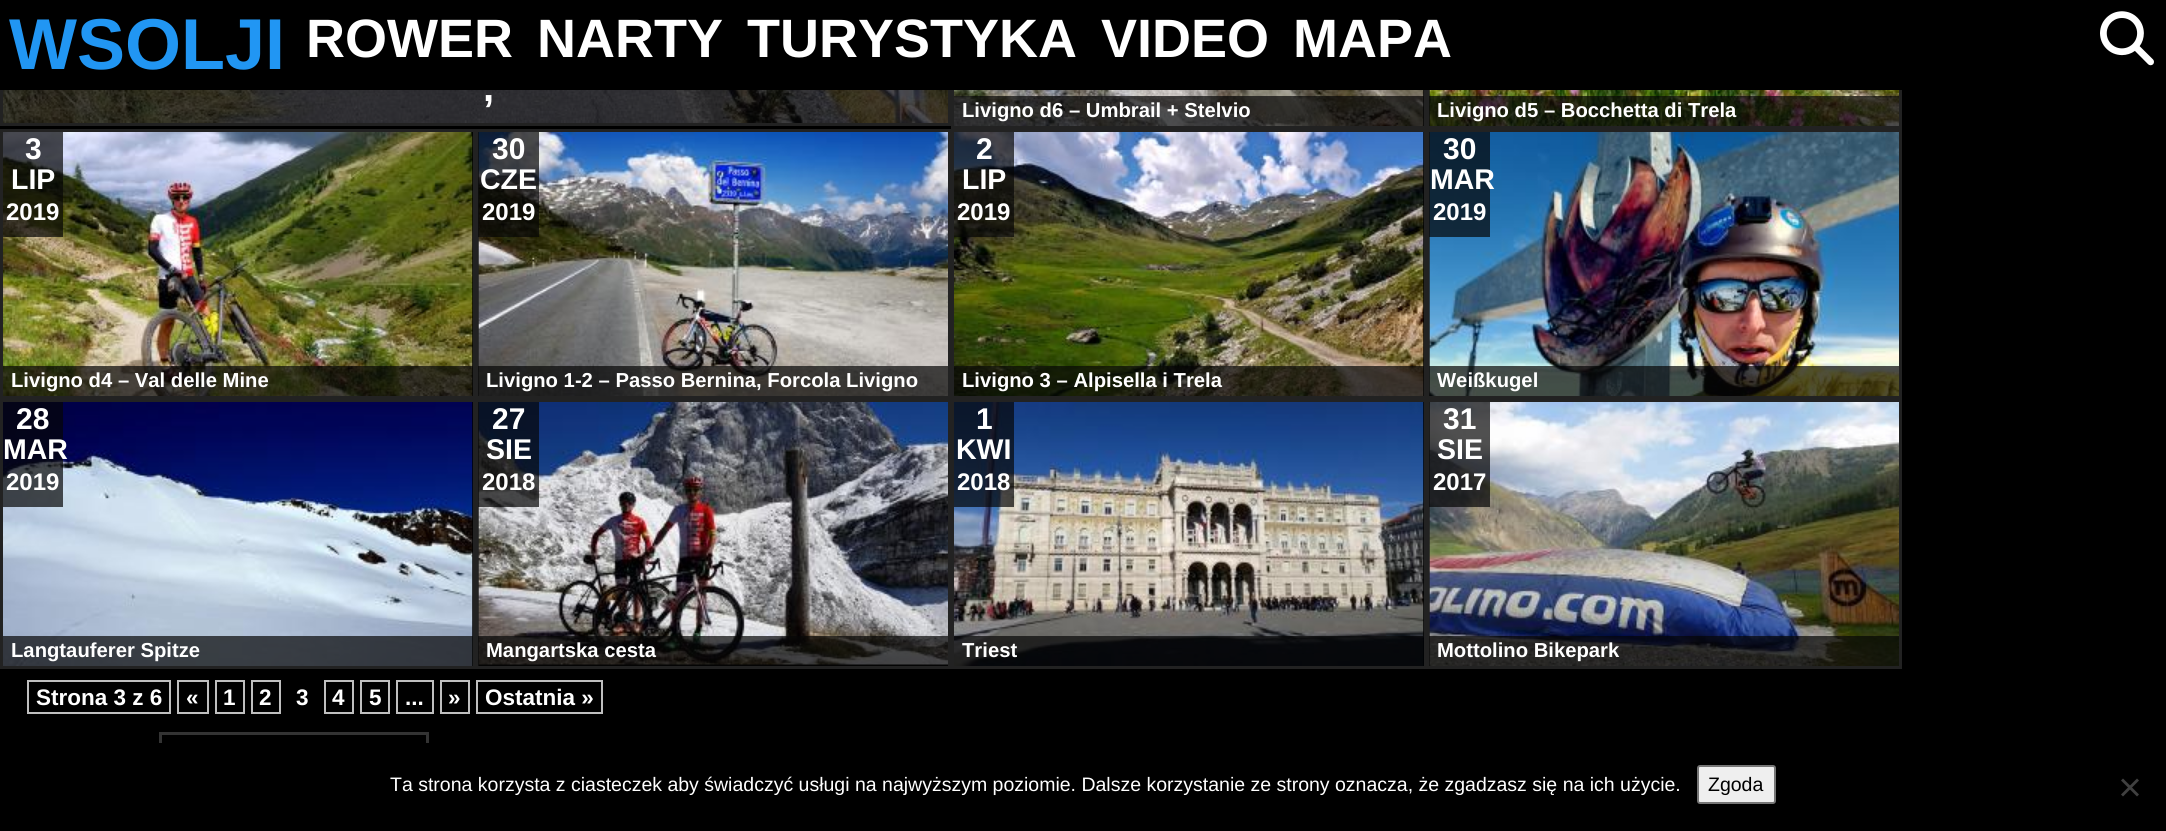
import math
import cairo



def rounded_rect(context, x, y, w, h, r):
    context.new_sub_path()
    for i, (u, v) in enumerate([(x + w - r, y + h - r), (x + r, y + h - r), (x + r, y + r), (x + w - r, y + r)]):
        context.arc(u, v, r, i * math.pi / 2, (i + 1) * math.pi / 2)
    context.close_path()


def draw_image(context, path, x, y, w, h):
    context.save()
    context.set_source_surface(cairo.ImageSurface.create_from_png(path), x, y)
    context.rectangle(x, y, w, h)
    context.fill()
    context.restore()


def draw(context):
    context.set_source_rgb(0, 0, 0)
    context.paint()
    context.rectangle(1.5, -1.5, 948, 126)
    context.set_source_rgb(34 / 255, 34 / 255, 34 / 255)
    context.set_line_width(3)
    context.stroke()
    context.rectangle(952.5, -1.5, 473, 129)
    context.stroke()
    context.rectangle(1428.5, -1.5, 472, 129)
    context.stroke()
    context.set_source_rgb(0, 0, 0)
    context.rectangle(0, 0, 1902, 90)
    context.fill()
    draw_image(context, "images/1.png", 2100, 11, 54, 55)
    draw_image(context, "images/2.png", 3, 90, 945, 33)
    context.set_source_rgba(6 / 255, 6 / 255, 6 / 255, 0.7)
    context.rectangle(3, 90, 945, 33)
    context.fill()
    draw_image(context, "images/3.png", 954, 90, 470, 36)
    context.rectangle(954, 96, 470, 30)
    context.fill()
    draw_image(context, "images/4.png", 1429, 90, 470, 36)
    context.rectangle(1429, 96, 470, 30)
    context.fill()
    context.rectangle(1.5, 130.5, 473, 267)
    context.set_source_rgb(34 / 255, 34 / 255, 34 / 255)
    context.stroke()
    draw_image(context, "images/5.png", 3, 132, 470, 264)
    context.set_source_rgba(6 / 255, 6 / 255, 6 / 255, 0.7)
    context.rectangle(3, 132, 60, 105)
    context.fill()
    context.rectangle(3, 366, 470, 30)
    context.fill()
    context.rectangle(477.5, 130.5, 472, 267)
    context.set_source_rgb(34 / 255, 34 / 255, 34 / 255)
    context.stroke()
    draw_image(context, "images/6.png", 478, 132, 470, 264)
    context.set_source_rgba(6 / 255, 6 / 255, 6 / 255, 0.7)
    context.rectangle(478, 132, 61, 105)
    context.fill()
    context.rectangle(478, 366, 470, 30)
    context.fill()
    context.rectangle(952.5, 130.5, 473, 267)
    context.set_source_rgb(34 / 255, 34 / 255, 34 / 255)
    context.stroke()
    draw_image(context, "images/7.png", 954, 132, 470, 264)
    context.set_source_rgba(6 / 255, 6 / 255, 6 / 255, 0.7)
    context.rectangle(954, 132, 60, 105)
    context.fill()
    context.rectangle(954, 366, 470, 30)
    context.fill()
    context.rectangle(1428.5, 130.5, 472, 267)
    context.set_source_rgb(34 / 255, 34 / 255, 34 / 255)
    context.stroke()
    draw_image(context, "images/8.png", 1429, 132, 470, 264)
    context.set_source_rgba(6 / 255, 6 / 255, 6 / 255, 0.7)
    context.rectangle(1429, 132, 61, 105)
    context.fill()
    context.rectangle(1429, 366, 470, 30)
    context.fill()
    context.rectangle(1.5, 400.5, 473, 267)
    context.set_source_rgb(34 / 255, 34 / 255, 34 / 255)
    context.stroke()
    draw_image(context, "images/9.png", 3, 402, 470, 264)
    context.set_source_rgba(6 / 255, 6 / 255, 6 / 255, 0.7)
    context.rectangle(3, 402, 60, 105)
    context.fill()
    context.rectangle(3, 636, 470, 30)
    context.fill()
    context.rectangle(477.5, 400.5, 472, 267)
    context.set_source_rgb(34 / 255, 34 / 255, 34 / 255)
    context.stroke()
    draw_image(context, "images/10.png", 478, 402, 470, 263)
    context.set_source_rgba(6 / 255, 6 / 255, 6 / 255, 0.7)
    context.rectangle(478, 402, 61, 105)
    context.fill()
    context.rectangle(478, 636, 470, 30)
    context.fill()
    context.rectangle(952.5, 400.5, 473, 267)
    context.set_source_rgb(34 / 255, 34 / 255, 34 / 255)
    context.stroke()
    draw_image(context, "images/11.png", 954, 402, 470, 264)
    context.set_source_rgba(6 / 255, 6 / 255, 6 / 255, 0.7)
    context.rectangle(954, 402, 60, 105)
    context.fill()
    context.rectangle(954, 636, 469, 30)
    context.fill()
    context.rectangle(1428.5, 400.5, 472, 267)
    context.set_source_rgb(34 / 255, 34 / 255, 34 / 255)
    context.stroke()
    draw_image(context, "images/12.png", 1429, 402, 470, 264)
    context.set_source_rgba(6 / 255, 6 / 255, 6 / 255, 0.7)
    context.rectangle(1429, 402, 61, 105)
    context.fill()
    context.rectangle(1429, 636, 470, 30)
    context.fill()
    context.rectangle(28, 681, 142, 32)
    context.set_source_rgb(191 / 255, 191 / 255, 191 / 255)
    context.set_line_width(2)
    context.stroke()
    context.rectangle(178, 681, 30, 32)
    context.stroke()
    context.rectangle(216, 681, 28, 32)
    context.stroke()
    context.rectangle(252, 681, 28, 32)
    context.stroke()
    context.rectangle(325, 681, 28, 32)
    context.stroke()
    context.rectangle(361, 681, 28, 32)
    context.stroke()
    context.rectangle(397, 681, 36, 32)
    context.stroke()
    context.rectangle(441, 681, 28, 32)
    context.stroke()
    context.rectangle(477, 681, 125, 32)
    context.stroke()
    context.rectangle(160.5, 733.5, 267, 36)
    context.set_source_rgb(51 / 255, 51 / 255, 51 / 255)
    context.set_line_width(3)
    context.stroke()
    context.set_source_rgb(0, 0, 0)
    context.rectangle(159, 743, 270, 28)
    context.fill()
    context.set_source_rgb(239 / 255, 239 / 255, 239 / 255)
    rounded_rect(context, 1698, 766, 77, 37, 2)
    context.fill_preserve()
    context.set_source_rgb(118 / 255, 118 / 255, 118 / 255)
    context.set_line_width(2)
    context.stroke()
    context.set_source_rgb(64 / 255, 64 / 255, 64 / 255)
    context.new_path()
    context.move_to(2137, 778.5)
    context.line_to(2139, 780.5)
    context.line_to(2123, 796.5)
    context.line_to(2121, 794.5)
    context.close_path()
    context.fill()
    context.new_path()
    context.move_to(2121, 780.5)
    context.line_to(2123, 778.5)
    context.line_to(2139, 794.5)
    context.line_to(2137, 796.5)
    context.close_path()
    context.fill()
    context.select_font_face("Liberation Sans", cairo.FontSlant.NORMAL, cairo.FontWeight.BOLD)
    context.set_font_size(72)
    context.set_source_rgb(33 / 255, 150 / 255, 243 / 255)
    context.move_to(9, 69)
    context.show_text("WSOLJI")
    context.set_font_size(54)
    context.set_source_rgb(1, 1, 1)
    context.move_to(306, 57)
    context.show_text("ROWER")
    context.move_to(537, 57)
    context.show_text("NARTY")
    context.move_to(747, 57)
    context.show_text("TURYSTYKA")
    context.move_to(1101, 57)
    context.show_text("VIDEO")
    context.move_to(1293, 57)
    context.show_text("MAPA")
    context.set_font_size(40)
    context.move_to(483, 101)
    context.show_text(",")
    context.set_font_size(20.25)
    context.move_to(962, 117)
    context.show_text("Livigno d6 – Umbrail + Stelvio")
    context.move_to(1437, 117)
    context.show_text("Livigno d5 – Bocchetta di Trela")
    context.set_font_size(30)
    context.move_to(25, 159)
    context.show_text("3")
    context.set_font_size(28.5)
    context.move_to(11, 189)
    context.show_text("LIP")
    context.set_font_size(24)
    context.move_to(6, 220)
    context.show_text("2019")
    context.set_font_size(20.25)
    context.move_to(11, 387)
    context.show_text("Livigno d4 – Val delle Mine")
    context.set_font_size(30)
    context.move_to(492, 159)
    context.show_text("30")
    context.set_font_size(28.5)
    context.move_to(480, 189)
    context.show_text("CZE")
    context.set_font_size(24)
    context.move_to(482, 220)
    context.show_text("2019")
    context.set_font_size(20.25)
    context.move_to(486, 387)
    context.show_text("Livigno 1-2 – Passo Bernina, Forcola Livigno")
    context.set_font_size(30)
    context.move_to(976, 159)
    context.show_text("2")
    context.set_font_size(28.5)
    context.move_to(962, 189)
    context.show_text("LIP")
    context.set_font_size(24)
    context.move_to(957, 220)
    context.show_text("2019")
    context.set_font_size(20.25)
    context.move_to(962, 387)
    context.show_text("Livigno 3 – Alpisella i Trela")
    context.set_font_size(30)
    context.move_to(1443, 159)
    context.show_text("30")
    context.set_font_size(28.5)
    context.move_to(1430, 189)
    context.show_text("MAR")
    context.set_font_size(24)
    context.move_to(1433, 220)
    context.show_text("2019")
    context.set_font_size(20.25)
    context.move_to(1437, 387)
    context.show_text("Weißkugel")
    context.set_font_size(30)
    context.move_to(16, 429)
    context.show_text("28")
    context.set_font_size(28.5)
    context.move_to(3, 459)
    context.show_text("MAR")
    context.set_font_size(24)
    context.move_to(6, 490)
    context.show_text("2019")
    context.set_font_size(20.25)
    context.move_to(11, 657)
    context.show_text("Langtauferer Spitze")
    context.set_font_size(30)
    context.move_to(492, 429)
    context.show_text("27")
    context.set_font_size(28.5)
    context.move_to(486, 459)
    context.show_text("SIE")
    context.set_font_size(24)
    context.move_to(482, 490)
    context.show_text("2018")
    context.set_font_size(20.25)
    context.move_to(486, 657)
    context.show_text("Mangartska cesta")
    context.set_font_size(30)
    context.move_to(976, 429)
    context.show_text("1")
    context.set_font_size(28.5)
    context.move_to(956, 459)
    context.show_text("KWI")
    context.set_font_size(24)
    context.move_to(957, 490)
    context.show_text("2018")
    context.set_font_size(20.25)
    context.move_to(962, 657)
    context.show_text("Triest")
    context.set_font_size(30)
    context.move_to(1443, 429)
    context.show_text("31")
    context.set_font_size(28.5)
    context.move_to(1437, 459)
    context.show_text("SIE")
    context.set_font_size(24)
    context.move_to(1433, 490)
    context.show_text("2017")
    context.set_font_size(20.25)
    context.move_to(1437, 657)
    context.show_text("Mottolino Bikepark")
    context.set_font_size(22.5)
    context.move_to(36, 705)
    context.show_text("Strona 3 z 6")
    context.move_to(186, 705)
    context.show_text("«")
    context.move_to(223, 705)
    context.show_text("1")
    context.move_to(259, 705)
    context.show_text("2")
    context.move_to(296, 705)
    context.show_text("3")
    context.move_to(332, 705)
    context.show_text("4")
    context.move_to(369, 705)
    context.show_text("5")
    context.move_to(405, 705)
    context.show_text("...")
    context.move_to(448, 705)
    context.show_text("»")
    context.move_to(485, 705)
    context.show_text("Ostatnia »")
    context.select_font_face("Liberation Sans")
    context.set_font_size(19.5)
    context.move_to(390, 791)
    context.show_text("Ta strona korzysta z ciasteczek aby świadczyć usługi na najwyższym poziomie. Dalsze korzystanie ze strony oznacza, że zgadzasz się na ich użycie.")
    context.set_source_rgb(0, 0, 0)
    context.move_to(1708, 791)
    context.show_text("Zgoda")


surface = cairo.ImageSurface(cairo.Format.RGB24, 2166, 831)
context = cairo.Context(surface)
options = cairo.FontOptions()
options.set_hint_metrics(cairo.HintMetrics.OFF)
options.set_hint_style(cairo.HintStyle.NONE)
context.set_font_options(options)
context.set_miter_limit(4)
draw(context)
surface.write_to_png("out.png")
